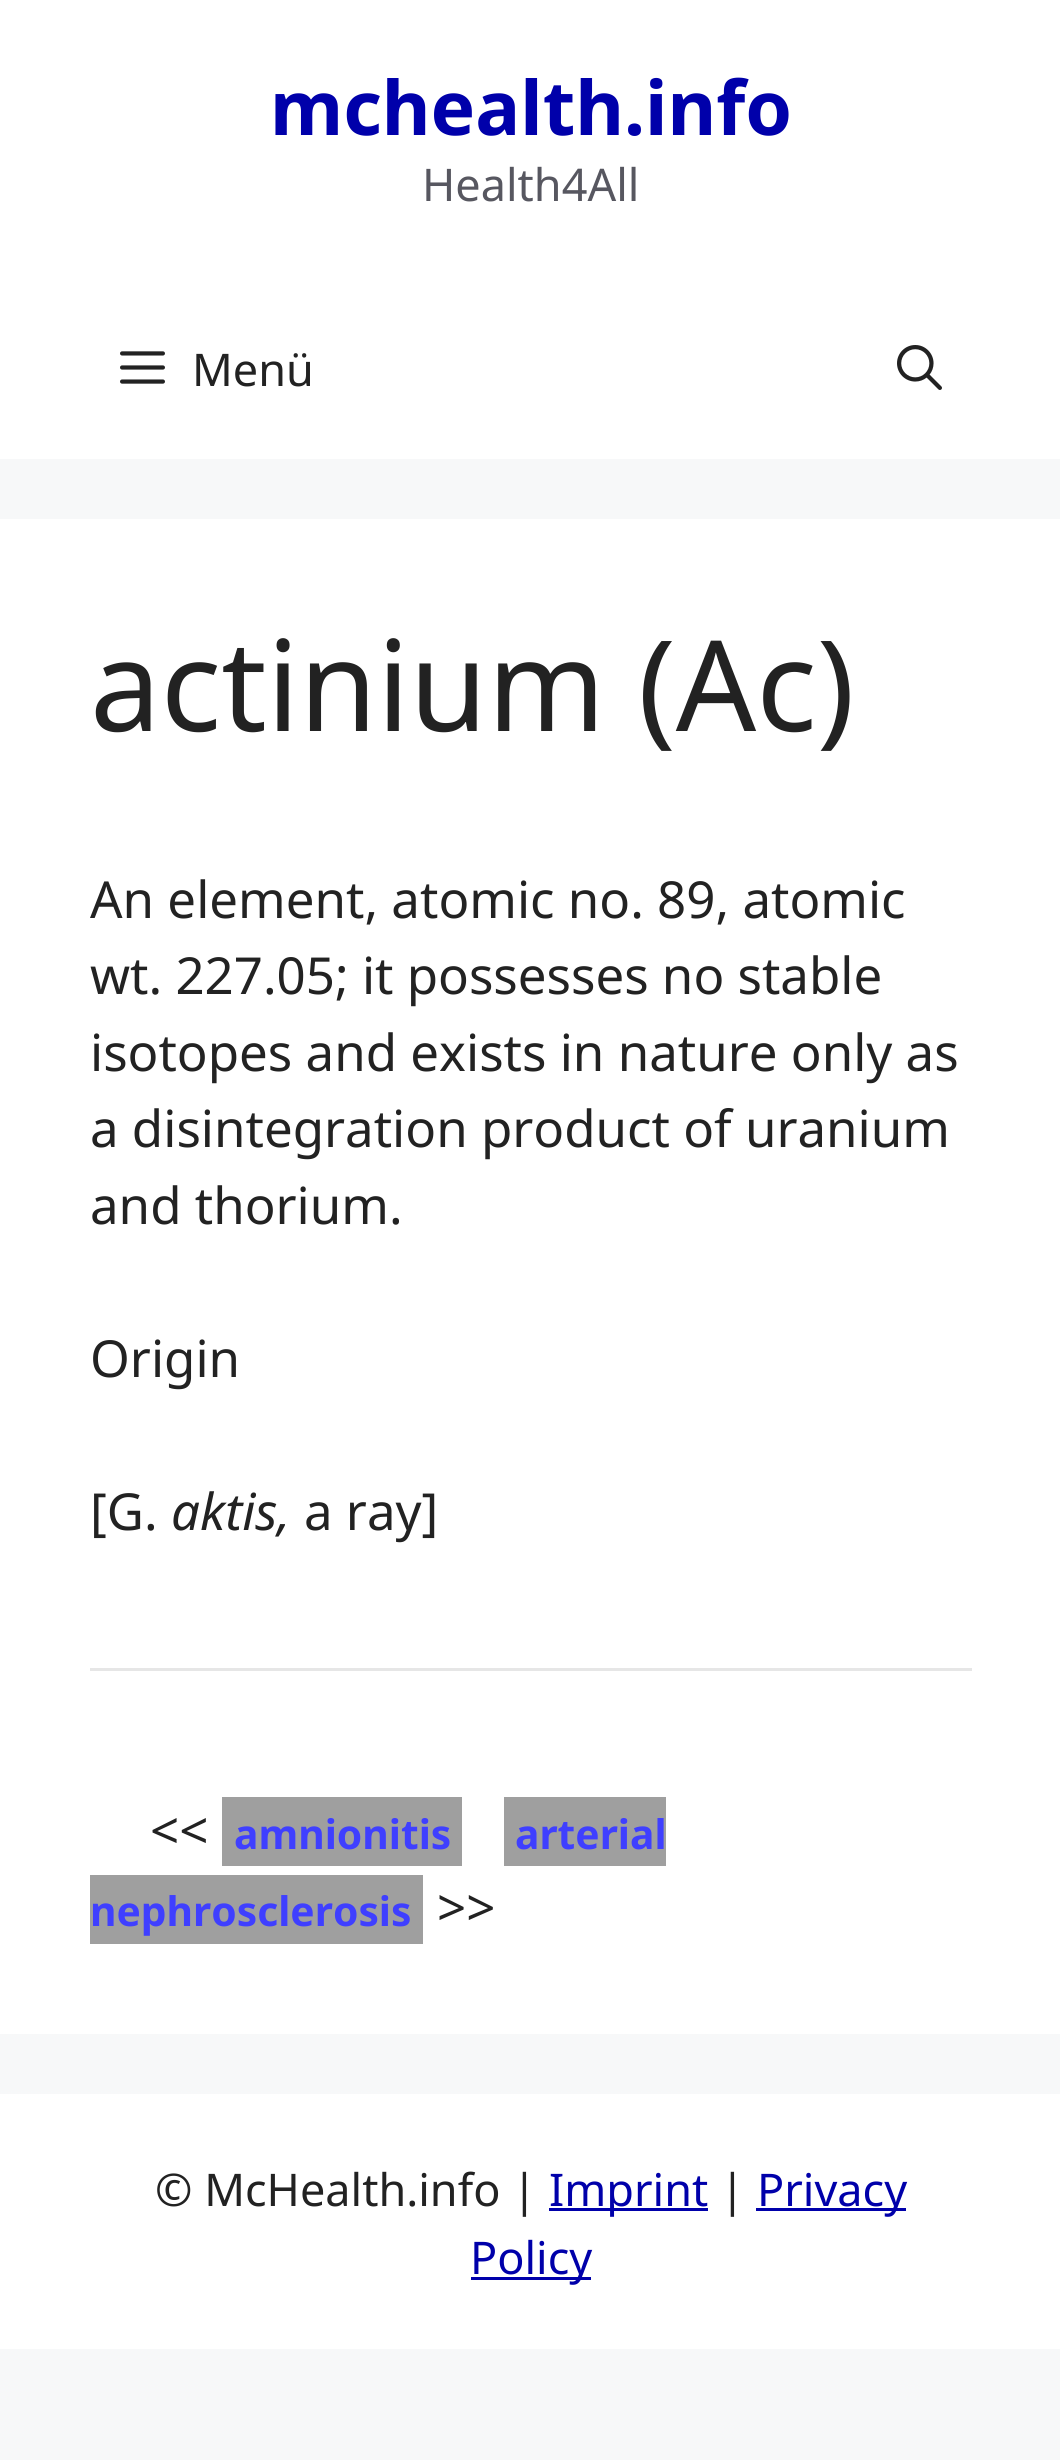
import math
import cairo



def draw_image(context, path, x, y, w, h):
    context.save()
    context.set_source_surface(cairo.ImageSurface.create_from_png(path), x, y)
    context.rectangle(x, y, w, h)
    context.fill()
    context.restore()


def draw(context):
    context.set_source_rgb(247 / 255, 248 / 255, 249 / 255)
    context.paint()
    context.set_source_rgb(1, 1, 1)
    context.rectangle(0, 0, 1060, 459)
    context.fill()
    draw_image(context, "images/1.png", 120, 351, 45, 33)
    draw_image(context, "images/2.png", 897, 345, 45, 45)
    context.rectangle(0, 519, 1060, 1515)
    context.fill()
    context.set_source_rgb(230 / 255, 230 / 255, 230 / 255)
    context.rectangle(90, 1668, 882, 3)
    context.fill()
    context.set_source_rgb(159 / 255, 159 / 255, 159 / 255)
    context.rectangle(222, 1797, 240, 69)
    context.fill()
    context.rectangle(504, 1797, 162, 69)
    context.fill()
    context.rectangle(90, 1875, 333, 69)
    context.fill()
    context.set_source_rgb(1, 1, 1)
    context.rectangle(0, 2094, 1060, 255)
    context.fill()
    context.set_source_rgb(0, 0, 170 / 255)
    context.rectangle(549, 2208, 159, 3)
    context.fill()
    context.rectangle(756, 2208, 150, 3)
    context.fill()
    context.rectangle(471, 2277, 120, 3)
    context.fill()
    context.select_font_face("Noto Sans", cairo.FontSlant.NORMAL, cairo.FontWeight.BOLD)
    context.set_font_size(75)
    context.move_to(270, 135)
    context.show_text("mchealth.info")
    context.select_font_face("Noto Sans")
    context.set_font_size(45)
    context.set_source_rgb(87 / 255, 87 / 255, 96 / 255)
    context.move_to(422, 201)
    context.show_text("Health4All")
    context.set_source_rgb(34 / 255, 34 / 255, 34 / 255)
    context.move_to(192, 386)
    context.show_text("Menü")
    context.set_font_size(126)
    context.move_to(90, 731)
    context.show_text("actinium (Ac)")
    context.set_font_size(51)
    context.move_to(90, 918)
    context.show_text("An element, atomic no. 89, atomic")
    context.move_to(90, 994)
    context.show_text("wt. 227.05; it possesses no stable")
    context.move_to(90, 1071)
    context.show_text("isotopes and exists in nature only as")
    context.move_to(90, 1147)
    context.show_text("a disintegration product of uranium")
    context.move_to(90, 1224)
    context.show_text("and thorium.")
    context.move_to(90, 1377)
    context.show_text("Origin")
    context.move_to(90, 1530)
    context.show_text("[G.")
    context.select_font_face("Noto Sans", cairo.FontSlant.ITALIC)
    context.move_to(171, 1530)
    context.show_text("aktis,")
    context.select_font_face("Noto Sans")
    context.move_to(304, 1530)
    context.show_text("a ray]")
    context.move_to(150, 1849)
    context.show_text("<<")
    context.select_font_face("Noto Sans", cairo.FontSlant.NORMAL, cairo.FontWeight.BOLD)
    context.set_font_size(40.75)
    context.set_source_rgb(63 / 255, 63 / 255, 1)
    context.move_to(234, 1849)
    context.show_text("amnionitis")
    context.move_to(515, 1849)
    context.show_text("arterial")
    context.move_to(90, 1926)
    context.show_text("nephrosclerosis")
    context.select_font_face("Noto Sans")
    context.set_font_size(51)
    context.set_source_rgb(34 / 255, 34 / 255, 34 / 255)
    context.move_to(437, 1926)
    context.show_text(">>")
    context.set_font_size(45)
    context.move_to(155, 2206)
    context.show_text("© McHealth.info |")
    context.set_source_rgb(0, 0, 170 / 255)
    context.move_to(549, 2206)
    context.show_text("Imprint")
    context.set_source_rgb(34 / 255, 34 / 255, 34 / 255)
    context.move_to(720, 2206)
    context.show_text("|")
    context.set_source_rgb(0, 0, 170 / 255)
    context.move_to(757, 2206)
    context.show_text("Privacy")
    context.move_to(470, 2274)
    context.show_text("Policy")


surface = cairo.ImageSurface(cairo.Format.RGB24, 1060, 2460)
context = cairo.Context(surface)
options = cairo.FontOptions()
options.set_hint_metrics(cairo.HintMetrics.OFF)
options.set_hint_style(cairo.HintStyle.NONE)
context.set_font_options(options)
context.set_miter_limit(4)
draw(context)
surface.write_to_png("out.png")
